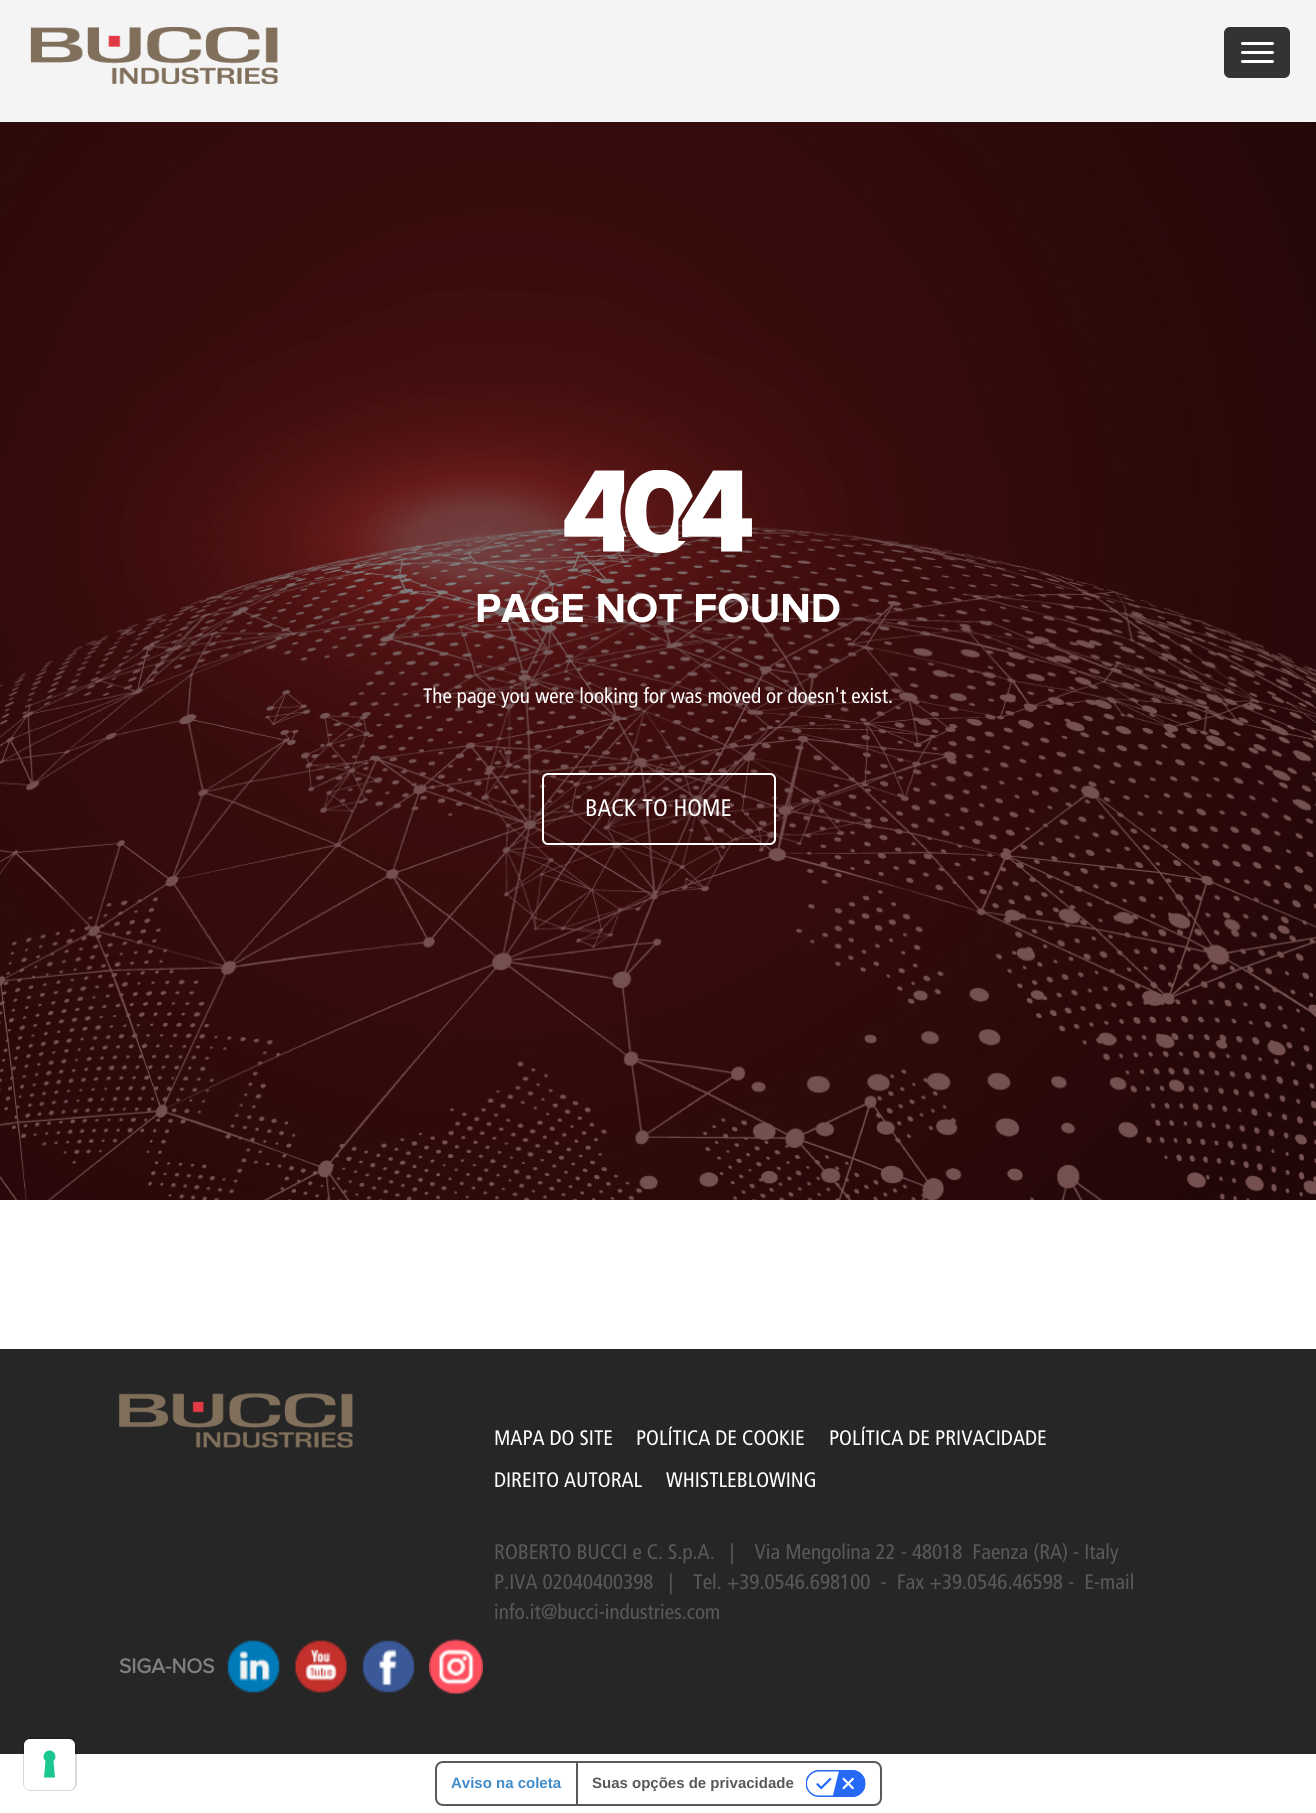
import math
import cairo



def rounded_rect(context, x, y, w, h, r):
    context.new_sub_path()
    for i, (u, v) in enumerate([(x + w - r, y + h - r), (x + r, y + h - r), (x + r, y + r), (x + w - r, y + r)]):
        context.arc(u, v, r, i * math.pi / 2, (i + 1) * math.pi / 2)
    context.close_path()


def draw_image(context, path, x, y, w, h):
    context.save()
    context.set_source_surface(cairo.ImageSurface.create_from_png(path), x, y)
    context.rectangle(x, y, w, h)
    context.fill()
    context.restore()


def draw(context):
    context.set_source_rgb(1, 1, 1)
    context.paint()
    context.set_source_rgb(244 / 255, 244 / 255, 244 / 255)
    context.rectangle(0, 0, 1316, 122)
    context.fill()
    draw_image(context, "images/1.png", 30, 27, 248, 57)
    context.set_source_rgb(51 / 255, 51 / 255, 51 / 255)
    rounded_rect(context, 1225, 28, 64, 49, 5)
    context.fill_preserve()
    context.stroke()
    context.set_source_rgb(1, 1, 1)
    rounded_rect(context, 1241, 42, 33, 3, 1.5)
    context.fill()
    rounded_rect(context, 1241, 51, 33, 3, 1.5)
    context.fill()
    rounded_rect(context, 1241, 60, 33, 3, 1.5)
    context.fill()
    draw_image(context, "images/2.png", 0, 122, 1316, 1078)
    draw_image(context, "images/3.png", 564, 470, 188, 84)
    rounded_rect(context, 543, 774, 232, 70, 5)
    context.stroke()
    context.set_source_rgb(38 / 255, 38 / 255, 38 / 255)
    context.rectangle(0, 1349, 1316, 405)
    context.fill()
    draw_image(context, "images/4.png", 119, 1393, 234, 55)
    draw_image(context, "images/5.png", 227, 1640, 53, 53)
    draw_image(context, "images/6.png", 294, 1640, 53, 53)
    draw_image(context, "images/7.png", 362, 1640, 53, 53)
    draw_image(context, "images/8.png", 429, 1639, 54, 55)
    rounded_rect(context, 24, 1738, 52, 52, 7)
    context.set_source_rgba(0, 0, 0, 0.15)
    context.stroke()
    context.set_source_rgb(1, 1, 1)
    rounded_rect(context, 24, 1739, 51, 51, 6)
    context.fill()
    context.set_source_rgb(28 / 255, 198 / 255, 145 / 255)
    context.set_fill_rule(cairo.FillRule.EVEN_ODD)
    context.new_path()
    context.move_to(49.5, 1750.5)
    context.curve_to(55, 1750.5, 57.5, 1757.5, 53.5, 1761)
    context.line_to(55, 1777.5)
    context.line_to(44, 1777.5)
    context.line_to(45.5, 1761)
    context.curve_to(41.5, 1757.5, 44, 1750.5, 49.5, 1750.5)
    context.close_path()
    context.fill()
    rounded_rect(context, 436, 1762, 445, 43, 7)
    context.set_source_rgb(89 / 255, 89 / 255, 89 / 255)
    context.stroke()
    context.rectangle(576, 1763, 2, 42)
    context.fill()
    draw_image(context, "images/9.png", 806, 1770, 60, 27)
    context.select_font_face("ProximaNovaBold")
    context.set_font_size(42)
    context.set_source_rgb(1, 1, 1)
    context.move_to(475, 622)
    context.show_text("PAGE NOT FOUND")
    context.select_font_face("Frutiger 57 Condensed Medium")
    context.set_font_size(21)
    context.move_to(423, 703)
    context.show_text("The page you were looking for was moved or doesn't exist.")
    context.set_font_size(24)
    context.move_to(585, 816)
    context.show_text("BACK TO HOME")
    context.set_font_size(21)
    context.move_to(494, 1445)
    context.show_text("MAPA DO SITE")
    context.move_to(636, 1445)
    context.show_text("POLÍTICA DE COOKIE")
    context.move_to(829, 1445)
    context.show_text("POLÍTICA DE PRIVACIDADE")
    context.move_to(494, 1487)
    context.show_text("DIREITO AUTORAL")
    context.move_to(666, 1487)
    context.show_text("WHISTLEBLOWING")
    context.set_source_rgb(89 / 255, 89 / 255, 89 / 255)
    context.move_to(494, 1559)
    context.show_text("ROBERTO BUCCI e C. S.p.A.   |    Via Mengolina 22 - 48018  Faenza (RA) - Italy")
    context.move_to(494, 1589)
    context.show_text("P.IVA 02040400398   |    Tel. +39.0546.698100  -  Fax +39.0546.46598 -  E-mail")
    context.move_to(494, 1619)
    context.show_text("info.it@bucci-industries.com")
    context.select_font_face("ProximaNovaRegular", cairo.FontSlant.NORMAL, cairo.FontWeight.BOLD)
    context.set_source_rgb(127 / 255, 127 / 255, 127 / 255)
    context.move_to(119, 1673)
    context.show_text("SIGA-NOS")
    context.select_font_face("Liberation Sans", cairo.FontSlant.NORMAL, cairo.FontWeight.BOLD)
    context.set_font_size(15)
    context.set_source_rgb(66 / 255, 139 / 255, 202 / 255)
    context.move_to(451, 1788)
    context.show_text("Aviso na coleta")
    context.set_source_rgb(89 / 255, 89 / 255, 89 / 255)
    context.move_to(592, 1788)
    context.show_text("Suas opções de privacidade")


surface = cairo.ImageSurface(cairo.Format.RGB24, 1316, 1813)
context = cairo.Context(surface)
options = cairo.FontOptions()
options.set_hint_metrics(cairo.HintMetrics.OFF)
options.set_hint_style(cairo.HintStyle.NONE)
context.set_font_options(options)
context.set_miter_limit(4)
draw(context)
surface.write_to_png("out.png")
